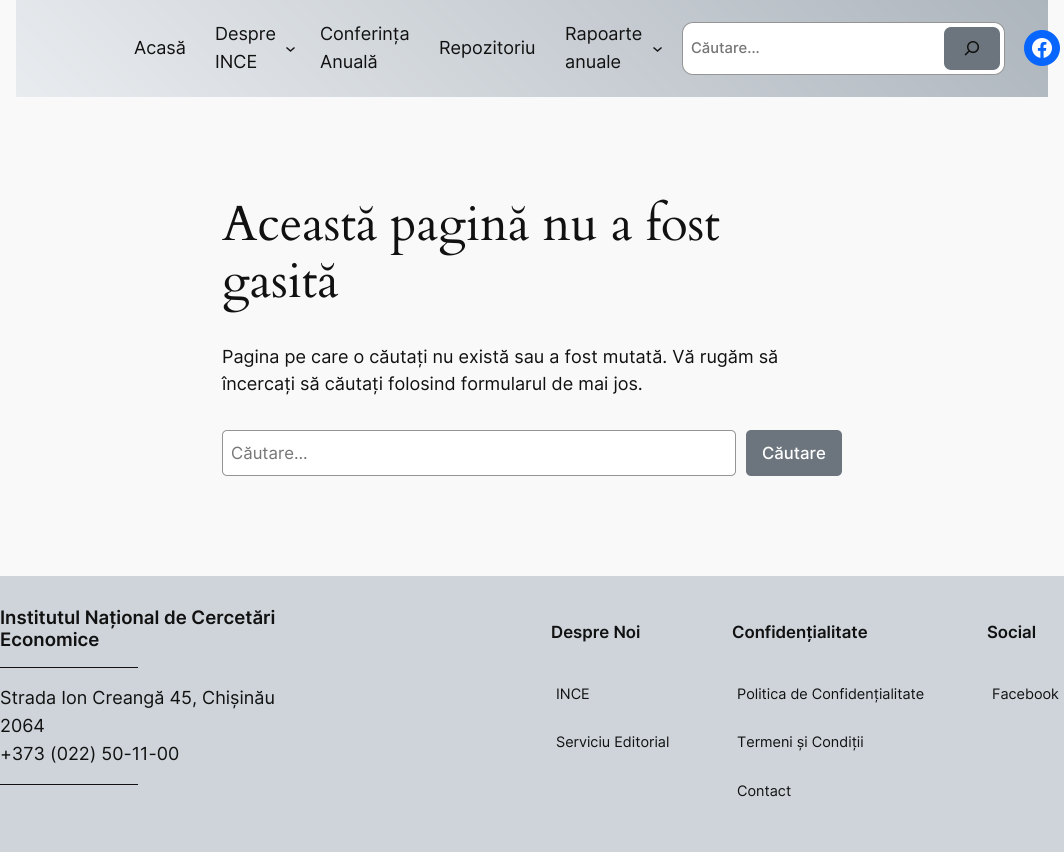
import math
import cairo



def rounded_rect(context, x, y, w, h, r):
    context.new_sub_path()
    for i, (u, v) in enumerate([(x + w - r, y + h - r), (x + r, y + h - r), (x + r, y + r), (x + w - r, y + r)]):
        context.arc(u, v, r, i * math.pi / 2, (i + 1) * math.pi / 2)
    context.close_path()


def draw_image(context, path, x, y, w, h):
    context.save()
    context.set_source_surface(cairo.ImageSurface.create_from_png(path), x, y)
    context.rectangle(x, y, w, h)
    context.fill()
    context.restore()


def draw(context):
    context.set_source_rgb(249 / 255, 249 / 255, 249 / 255)
    context.paint()
    gradient = cairo.LinearGradient(250, 331, 814, -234)
    gradient.add_color_stop_rgba(0, 233 / 255, 236 / 255, 239 / 255, 1)
    gradient.add_color_stop_rgba(1, 173 / 255, 181 / 255, 189 / 255, 1)
    context.set_source(gradient)
    context.rectangle(16, 0, 1032, 97)
    context.fill()
    context.new_path()
    context.move_to(286.5, 47.5)
    context.line_to(290.5, 51)
    context.line_to(294.5, 47.5)
    context.set_source_rgb(17 / 255, 17 / 255, 17 / 255)
    context.set_line_width(1.4)
    context.stroke()
    context.new_path()
    context.move_to(653.5, 47.5)
    context.line_to(657.5, 51)
    context.line_to(661.5, 47.5)
    context.stroke()
    context.set_source_rgb(1, 1, 1)
    rounded_rect(context, 682.5, 22.5, 322, 52, 10.5)
    context.fill_preserve()
    context.set_source_rgb(148 / 255, 148 / 255, 148 / 255)
    context.set_line_width(1)
    context.stroke()
    context.set_source_rgb(108 / 255, 117 / 255, 125 / 255)
    rounded_rect(context, 944, 27, 56, 43, 7)
    context.fill()
    draw_image(context, "images/1.png", 964, 41, 16, 15)
    context.set_source_rgb(8 / 255, 102 / 255, 1)
    context.arc(1042, 48, 18, 0, 2 * math.pi)
    context.fill()
    draw_image(context, "images/2.png", 1032, 38, 20, 20)
    draw_image(context, "images/3.png", 222, 199, 498, 57)
    draw_image(context, "images/4.png", 223, 262, 116, 51)
    context.set_source_rgb(1, 1, 1)
    rounded_rect(context, 222.5, 430.5, 513, 45, 4.5)
    context.fill_preserve()
    context.set_source_rgb(148 / 255, 148 / 255, 148 / 255)
    context.stroke()
    context.set_source_rgb(108 / 255, 117 / 255, 125 / 255)
    rounded_rect(context, 746, 430, 96, 46, 5)
    context.fill()
    context.set_source_rgb(206 / 255, 212 / 255, 218 / 255)
    context.rectangle(0, 576, 1064, 276)
    context.fill()
    context.set_source_rgb(17 / 255, 17 / 255, 17 / 255)
    context.rectangle(0, 667, 138, 1)
    context.fill()
    context.rectangle(0, 784, 138, 1)
    context.fill()
    context.select_font_face("Inter")
    context.set_font_size(18)
    context.move_to(134, 54)
    context.show_text("Acasă")
    context.move_to(215, 40)
    context.show_text("Despre")
    context.move_to(215, 68)
    context.show_text("INCE")
    context.move_to(320, 40)
    context.show_text("Conferința")
    context.move_to(320, 68)
    context.show_text("Anuală")
    context.move_to(439, 54)
    context.show_text("Repozitoriu")
    context.move_to(565, 40)
    context.show_text("Rapoarte")
    context.move_to(565, 68)
    context.show_text("anuale")
    context.select_font_face("Inter Medium")
    context.set_font_size(14.75)
    context.set_source_rgb(117 / 255, 117 / 255, 117 / 255)
    context.move_to(691, 53)
    context.show_text("Căutare...")
    context.select_font_face("Inter")
    context.set_font_size(18)
    context.set_source_rgb(17 / 255, 17 / 255, 17 / 255)
    context.move_to(222, 363)
    context.show_text("Pagina pe care o căutați nu există sau a fost mutată. Vă rugăm să")
    context.move_to(222, 390)
    context.show_text("încercați să căutați folosind formularul de mai jos.")
    context.set_font_size(16.75)
    context.set_source_rgb(117 / 255, 117 / 255, 117 / 255)
    context.move_to(231, 459)
    context.show_text("Căutare...")
    context.select_font_face("Inter Medium")
    context.set_source_rgb(1, 1, 1)
    context.move_to(762, 459)
    context.show_text("Căutare")
    context.select_font_face("Inter SemiBold")
    context.set_font_size(18.6)
    context.set_source_rgb(17 / 255, 17 / 255, 17 / 255)
    context.move_to(0, 624)
    context.show_text("Institutul Național de Cercetări")
    context.move_to(0, 646)
    context.show_text("Economice")
    context.select_font_face("Inter")
    context.set_font_size(18)
    context.move_to(0, 704)
    context.show_text("Strada Ion Creangă 45, Chișinău")
    context.move_to(0, 732)
    context.show_text("2064")
    context.move_to(0, 760)
    context.show_text("+373 (022) 50-11-00")
    context.select_font_face("Inter SemiBold")
    context.set_font_size(16.75)
    context.move_to(551, 638)
    context.show_text("Despre Noi")
    context.select_font_face("Inter")
    context.set_font_size(14.4)
    context.move_to(556, 699)
    context.show_text("INCE")
    context.move_to(556, 747)
    context.show_text("Serviciu Editorial")
    context.select_font_face("Inter SemiBold")
    context.set_font_size(16.75)
    context.move_to(732, 638)
    context.show_text("Confidențialitate")
    context.select_font_face("Inter")
    context.set_font_size(14.4)
    context.move_to(737, 699)
    context.show_text("Politica de Confidențialitate")
    context.move_to(737, 747)
    context.show_text("Termeni și Condiții")
    context.move_to(737, 796)
    context.show_text("Contact")
    context.select_font_face("Inter SemiBold")
    context.set_font_size(16.75)
    context.move_to(987, 638)
    context.show_text("Social")
    context.select_font_face("Inter")
    context.set_font_size(14.4)
    context.move_to(992, 699)
    context.show_text("Facebook")


surface = cairo.ImageSurface(cairo.Format.RGB24, 1064, 852)
context = cairo.Context(surface)
options = cairo.FontOptions()
options.set_hint_metrics(cairo.HintMetrics.OFF)
options.set_hint_style(cairo.HintStyle.NONE)
context.set_font_options(options)
context.set_miter_limit(4)
draw(context)
surface.write_to_png("out.png")
